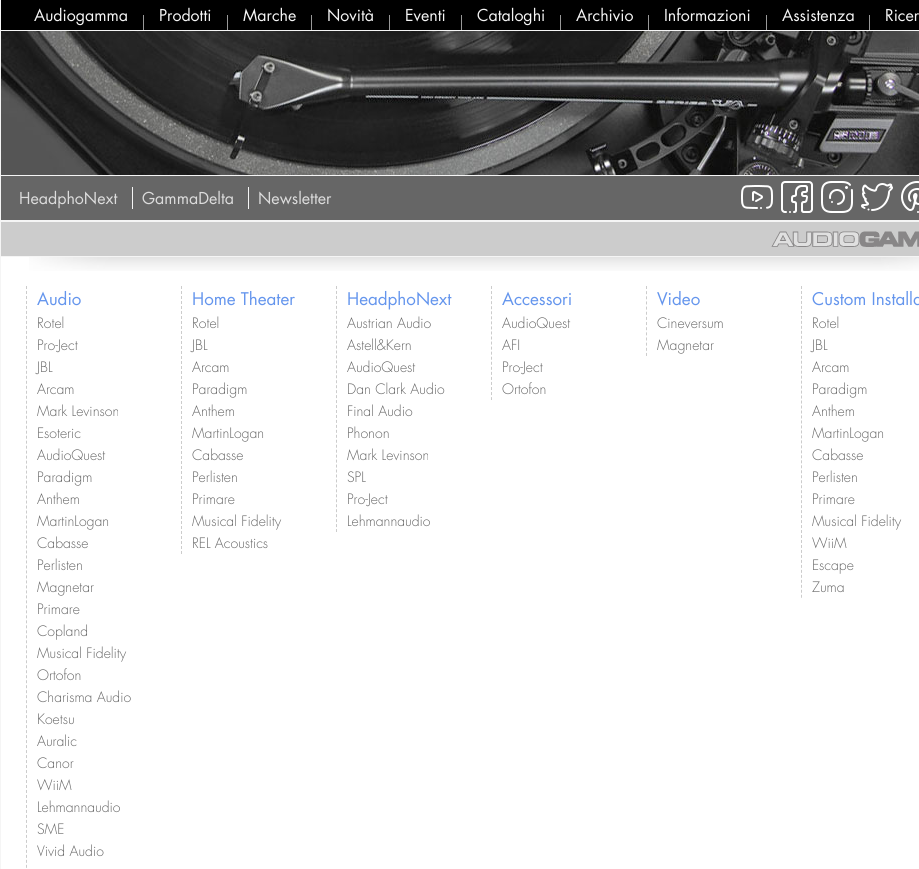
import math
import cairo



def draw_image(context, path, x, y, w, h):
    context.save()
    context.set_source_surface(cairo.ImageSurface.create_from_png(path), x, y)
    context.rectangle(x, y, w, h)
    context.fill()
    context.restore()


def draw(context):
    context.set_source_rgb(0, 0, 0)
    context.paint()
    context.set_source_rgb(245 / 255, 245 / 255, 245 / 255)
    context.rectangle(0, 0, 1, 869)
    context.fill()
    context.set_source_rgb(153 / 255, 153 / 255, 153 / 255)
    context.rectangle(143, 15, 1, 15)
    context.fill()
    context.rectangle(227, 15, 1, 15)
    context.fill()
    context.rectangle(311, 15, 1, 15)
    context.fill()
    context.rectangle(389, 15, 1, 15)
    context.fill()
    context.rectangle(461, 15, 1, 15)
    context.fill()
    context.rectangle(560, 15, 1, 15)
    context.fill()
    context.rectangle(648, 15, 1, 15)
    context.fill()
    context.rectangle(766, 15, 1, 15)
    context.fill()
    context.rectangle(869, 15, 1, 15)
    context.fill()
    context.set_source_rgb(245 / 255, 245 / 255, 245 / 255)
    context.rectangle(1, 30, 918, 1)
    context.fill()
    draw_image(context, "images/1.png", 1, 31, 918, 144)
    context.set_source_rgb(102 / 255, 102 / 255, 102 / 255)
    context.rectangle(1, 176, 918, 44)
    context.fill()
    context.set_source_rgb(245 / 255, 245 / 255, 245 / 255)
    context.rectangle(1, 175, 918, 1)
    context.fill()
    context.rectangle(1, 220, 918, 2)
    context.fill()
    context.rectangle(132, 187, 1, 22)
    context.fill()
    context.rectangle(248, 187, 1, 22)
    context.fill()
    draw_image(context, "images/2.png", 741, 185, 32, 24)
    draw_image(context, "images/3.png", 781, 181, 32, 32)
    draw_image(context, "images/4.png", 821, 181, 32, 32)
    draw_image(context, "images/5.png", 861, 183, 32, 28)
    draw_image(context, "images/6.png", 901, 181, 18, 32)
    context.set_source_rgb(204 / 255, 204 / 255, 204 / 255)
    context.rectangle(1, 222, 918, 34)
    context.fill()
    draw_image(context, "images/7.png", 771, 231, 148, 16)
    context.set_source_rgb(1, 1, 1)
    context.rectangle(1, 257, 918, 612)
    context.fill()
    draw_image(context, "images/8.png", 29, 257, 890, 14)
    context.set_source_rgb(245 / 255, 245 / 255, 245 / 255)
    context.rectangle(1, 256, 918, 1)
    context.fill()
    context.new_path()
    context.move_to(26.5, 286)
    context.line_to(26.5, 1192)
    context.set_source_rgb(204 / 255, 204 / 255, 204 / 255)
    context.set_line_width(1)
    context.set_dash([3, 1.99])
    context.stroke()
    context.new_path()
    context.move_to(181.5, 286)
    context.line_to(181.5, 554)
    context.set_dash([3, 2])
    context.stroke()
    context.new_path()
    context.move_to(336.5, 286)
    context.line_to(336.5, 532)
    context.set_dash([3, 1.96])
    context.stroke()
    context.new_path()
    context.move_to(491.5, 286)
    context.line_to(491.5, 400)
    context.set_dash([3, 2.05])
    context.stroke()
    context.new_path()
    context.move_to(646.5, 286)
    context.line_to(646.5, 356)
    context.set_dash([3, 2.15])
    context.stroke()
    context.new_path()
    context.move_to(801.5, 286)
    context.line_to(801.5, 598)
    context.set_dash([3, 1.98])
    context.stroke()
    context.select_font_face("Futura")
    context.set_font_size(16)
    context.set_source_rgb(245 / 255, 245 / 255, 245 / 255)
    context.move_to(34, 21)
    context.show_text("Audiogamma")
    context.move_to(159, 21)
    context.show_text("Prodotti")
    context.move_to(243, 21)
    context.show_text("Marche")
    context.move_to(327, 21)
    context.show_text("Novità")
    context.move_to(405, 21)
    context.show_text("Eventi")
    context.move_to(477, 21)
    context.show_text("Cataloghi")
    context.move_to(576, 21)
    context.show_text("Archivio")
    context.move_to(664, 21)
    context.show_text("Informazioni")
    context.move_to(782, 21)
    context.show_text("Assistenza")
    context.move_to(885, 21)
    context.show_text("Ricer")
    context.set_source_rgb(220 / 255, 220 / 255, 220 / 255)
    context.move_to(19, 204)
    context.show_text("HeadphoNext")
    context.move_to(142, 204)
    context.show_text("GammaDelta")
    context.move_to(258, 204)
    context.show_text("Newsletter")
    context.set_font_size(17)
    context.set_source_rgb(100 / 255, 149 / 255, 237 / 255)
    context.move_to(37, 305)
    context.show_text("Audio")
    context.select_font_face("Futura Light")
    context.set_font_size(14)
    context.set_source_rgb(102 / 255, 102 / 255, 102 / 255)
    context.move_to(37, 328)
    context.show_text("Rotel")
    context.move_to(37, 350)
    context.show_text("Pro-Ject")
    context.move_to(37, 372)
    context.show_text("JBL")
    context.move_to(37, 394)
    context.show_text("Arcam")
    context.move_to(37, 416)
    context.show_text("Mark Levinson")
    context.move_to(37, 438)
    context.show_text("Esoteric")
    context.move_to(37, 460)
    context.show_text("AudioQuest")
    context.move_to(37, 482)
    context.show_text("Paradigm")
    context.move_to(37, 504)
    context.show_text("Anthem")
    context.move_to(37, 526)
    context.show_text("MartinLogan")
    context.move_to(37, 548)
    context.show_text("Cabasse")
    context.move_to(37, 570)
    context.show_text("Perlisten")
    context.move_to(37, 592)
    context.show_text("Magnetar")
    context.move_to(37, 614)
    context.show_text("Primare")
    context.move_to(37, 636)
    context.show_text("Copland")
    context.move_to(37, 658)
    context.show_text("Musical Fidelity")
    context.move_to(37, 680)
    context.show_text("Ortofon")
    context.move_to(37, 702)
    context.show_text("Charisma Audio")
    context.move_to(37, 724)
    context.show_text("Koetsu")
    context.move_to(37, 746)
    context.show_text("Auralic")
    context.move_to(37, 768)
    context.show_text("Canor")
    context.move_to(37, 790)
    context.show_text("WiiM")
    context.move_to(37, 812)
    context.show_text("Lehmannaudio")
    context.move_to(37, 834)
    context.show_text("SME")
    context.move_to(37, 856)
    context.show_text("Vivid Audio")
    context.select_font_face("Futura")
    context.set_font_size(17)
    context.set_source_rgb(100 / 255, 149 / 255, 237 / 255)
    context.move_to(192, 305)
    context.show_text("Home Theater")
    context.select_font_face("Futura Light")
    context.set_font_size(14)
    context.set_source_rgb(102 / 255, 102 / 255, 102 / 255)
    context.move_to(192, 328)
    context.show_text("Rotel")
    context.move_to(192, 350)
    context.show_text("JBL")
    context.move_to(192, 372)
    context.show_text("Arcam")
    context.move_to(192, 394)
    context.show_text("Paradigm")
    context.move_to(192, 416)
    context.show_text("Anthem")
    context.move_to(192, 438)
    context.show_text("MartinLogan")
    context.move_to(192, 460)
    context.show_text("Cabasse")
    context.move_to(192, 482)
    context.show_text("Perlisten")
    context.move_to(192, 504)
    context.show_text("Primare")
    context.move_to(192, 526)
    context.show_text("Musical Fidelity")
    context.move_to(192, 548)
    context.show_text("REL Acoustics")
    context.select_font_face("Futura")
    context.set_font_size(17)
    context.set_source_rgb(100 / 255, 149 / 255, 237 / 255)
    context.move_to(347, 305)
    context.show_text("HeadphoNext")
    context.select_font_face("Futura Light")
    context.set_font_size(14)
    context.set_source_rgb(102 / 255, 102 / 255, 102 / 255)
    context.move_to(347, 328)
    context.show_text("Austrian Audio")
    context.move_to(347, 350)
    context.show_text("Astell&Kern")
    context.move_to(347, 372)
    context.show_text("AudioQuest")
    context.move_to(347, 394)
    context.show_text("Dan Clark Audio")
    context.move_to(347, 416)
    context.show_text("Final Audio")
    context.move_to(347, 438)
    context.show_text("Phonon")
    context.move_to(347, 460)
    context.show_text("Mark Levinson")
    context.move_to(347, 482)
    context.show_text("SPL")
    context.move_to(347, 504)
    context.show_text("Pro-Ject")
    context.move_to(347, 526)
    context.show_text("Lehmannaudio")
    context.select_font_face("Futura")
    context.set_font_size(17)
    context.set_source_rgb(100 / 255, 149 / 255, 237 / 255)
    context.move_to(502, 305)
    context.show_text("Accessori")
    context.select_font_face("Futura Light")
    context.set_font_size(14)
    context.set_source_rgb(102 / 255, 102 / 255, 102 / 255)
    context.move_to(502, 328)
    context.show_text("AudioQuest")
    context.move_to(502, 350)
    context.show_text("AFI")
    context.move_to(502, 372)
    context.show_text("Pro-Ject")
    context.move_to(502, 394)
    context.show_text("Ortofon")
    context.select_font_face("Futura")
    context.set_font_size(17)
    context.set_source_rgb(100 / 255, 149 / 255, 237 / 255)
    context.move_to(657, 305)
    context.show_text("Video")
    context.select_font_face("Futura Light")
    context.set_font_size(14)
    context.set_source_rgb(102 / 255, 102 / 255, 102 / 255)
    context.move_to(657, 328)
    context.show_text("Cineversum")
    context.move_to(657, 350)
    context.show_text("Magnetar")
    context.select_font_face("Futura")
    context.set_font_size(17)
    context.set_source_rgb(100 / 255, 149 / 255, 237 / 255)
    context.move_to(812, 305)
    context.show_text("Custom Installa")
    context.select_font_face("Futura Light")
    context.set_font_size(14)
    context.set_source_rgb(102 / 255, 102 / 255, 102 / 255)
    context.move_to(812, 328)
    context.show_text("Rotel")
    context.move_to(812, 350)
    context.show_text("JBL")
    context.move_to(812, 372)
    context.show_text("Arcam")
    context.move_to(812, 394)
    context.show_text("Paradigm")
    context.move_to(812, 416)
    context.show_text("Anthem")
    context.move_to(812, 438)
    context.show_text("MartinLogan")
    context.move_to(812, 460)
    context.show_text("Cabasse")
    context.move_to(812, 482)
    context.show_text("Perlisten")
    context.move_to(812, 504)
    context.show_text("Primare")
    context.move_to(812, 526)
    context.show_text("Musical Fidelity")
    context.move_to(812, 548)
    context.show_text("WiiM")
    context.move_to(812, 570)
    context.show_text("Escape")
    context.move_to(812, 592)
    context.show_text("Zuma")


surface = cairo.ImageSurface(cairo.Format.RGB24, 919, 869)
context = cairo.Context(surface)
options = cairo.FontOptions()
options.set_hint_metrics(cairo.HintMetrics.OFF)
options.set_hint_style(cairo.HintStyle.NONE)
context.set_font_options(options)
context.set_miter_limit(4)
draw(context)
surface.write_to_png("out.png")
